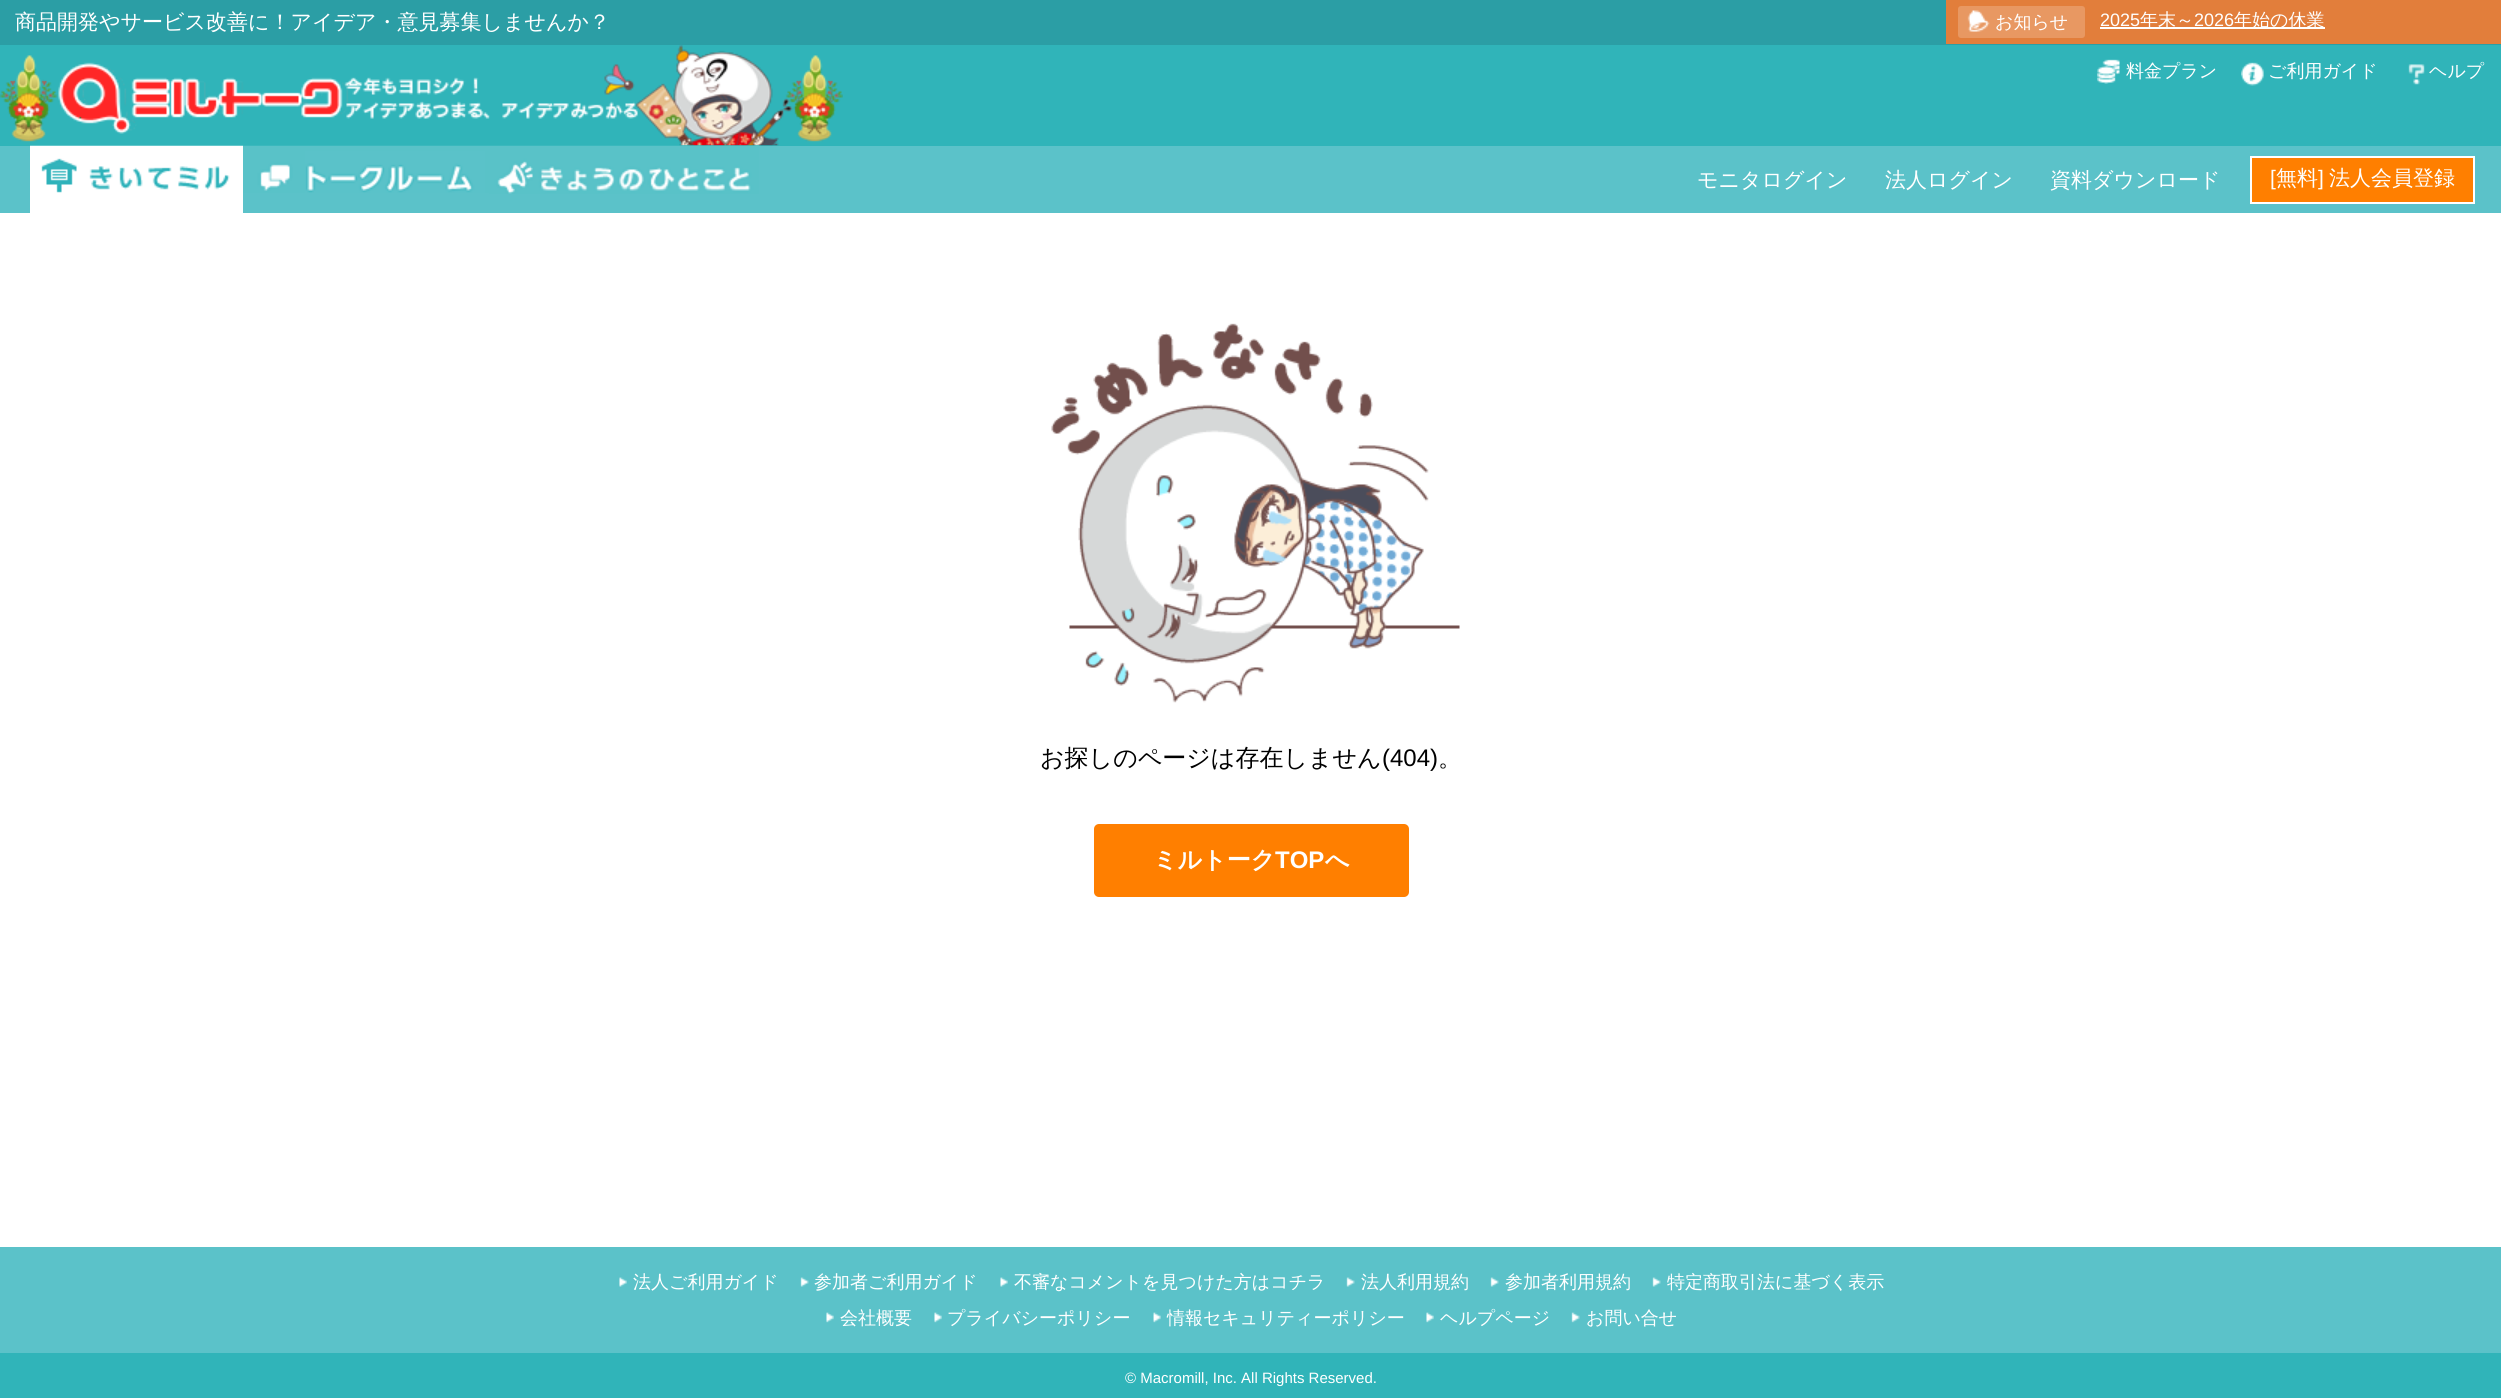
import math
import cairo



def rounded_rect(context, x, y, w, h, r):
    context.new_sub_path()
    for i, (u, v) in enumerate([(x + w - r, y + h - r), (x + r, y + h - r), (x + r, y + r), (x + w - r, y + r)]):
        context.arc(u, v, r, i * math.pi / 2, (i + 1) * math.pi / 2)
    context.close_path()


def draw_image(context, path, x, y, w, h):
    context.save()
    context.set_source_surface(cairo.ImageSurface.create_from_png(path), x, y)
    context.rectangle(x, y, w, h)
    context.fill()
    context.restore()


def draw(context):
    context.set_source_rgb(1, 1, 1)
    context.paint()
    context.set_source_rgb(43 / 255, 158 / 255, 165 / 255)
    context.rectangle(0, 0, 2501, 45)
    context.fill()
    context.set_source_rgb(226 / 255, 126 / 255, 59 / 255)
    context.rectangle(1946, 0, 555, 44)
    context.fill()
    context.set_source_rgb(232 / 255, 152 / 255, 98 / 255)
    rounded_rect(context, 1958, 6, 127, 32, 3)
    context.fill()
    draw_image(context, "images/1.png", 1967, 10, 23, 22)
    context.set_source_rgb(1, 1, 1)
    context.rectangle(2100, 27, 225, 2)
    context.fill()
    context.set_source_rgb(48 / 255, 180 / 255, 185 / 255)
    context.rectangle(0, 45, 2501, 101)
    context.fill()
    draw_image(context, "images/2.png", 0, 45, 843, 101)
    draw_image(context, "images/3.png", 2097, 59, 23, 25)
    draw_image(context, "images/4.png", 2241, 62, 23, 24)
    draw_image(context, "images/5.png", 2408, 64, 17, 21)
    context.set_source_rgb(91 / 255, 194 / 255, 201 / 255)
    context.rectangle(0, 146, 2501, 67)
    context.fill()
    draw_image(context, "images/6.png", 30, 145, 213, 68)
    draw_image(context, "images/7.png", 243, 145, 246, 48)
    draw_image(context, "images/8.png", 489, 145, 270, 49)
    context.set_source_rgb(1, 127 / 255, 0)
    context.rectangle(2251, 157, 223, 46)
    context.fill_preserve()
    context.set_source_rgb(1, 1, 1)
    context.stroke()
    draw_image(context, "images/9.png", 1051, 323, 409, 380)
    context.set_source_rgb(1, 127 / 255, 0)
    rounded_rect(context, 1094, 824, 315, 73, 5)
    context.fill()
    context.set_source_rgb(91 / 255, 194 / 255, 201 / 255)
    context.rectangle(0, 1247, 2501, 106)
    context.fill()
    draw_image(context, "images/10.png", 619, 1277, 8, 10)
    draw_image(context, "images/11.png", 800, 1277, 9, 10)
    draw_image(context, "images/10.png", 1000, 1277, 8, 10)
    draw_image(context, "images/12.png", 1346, 1277, 9, 10)
    draw_image(context, "images/12.png", 1490, 1277, 9, 10)
    draw_image(context, "images/11.png", 1652, 1277, 9, 10)
    draw_image(context, "images/13.png", 826, 1312, 8, 11)
    draw_image(context, "images/13.png", 934, 1312, 8, 11)
    draw_image(context, "images/14.png", 1153, 1312, 8, 11)
    draw_image(context, "images/13.png", 1426, 1312, 8, 11)
    draw_image(context, "images/15.png", 1571, 1312, 9, 11)
    context.set_source_rgb(48 / 255, 180 / 255, 185 / 255)
    context.rectangle(0, 1353, 2501, 45)
    context.fill()
    context.select_font_face("WenQuanYi Zen Hei Medium")
    context.set_font_size(21)
    context.set_source_rgb(1, 1, 1)
    context.move_to(15, 29)
    context.show_text("商品開発やサービス改善に！アイデア・意見募集しませんか？")
    context.set_font_size(18)
    context.move_to(1995, 28)
    context.show_text("お知らせ")
    context.select_font_face("Liberation Sans")
    context.move_to(2100, 26)
    context.show_text("2025")
    context.select_font_face("WenQuanYi Zen Hei Medium")
    context.move_to(2140, 26)
    context.show_text("年末～")
    context.select_font_face("Liberation Sans")
    context.move_to(2194, 26)
    context.show_text("2026")
    context.select_font_face("WenQuanYi Zen Hei Medium")
    context.move_to(2234, 26)
    context.show_text("年始の休業")
    context.move_to(2126, 77)
    context.show_text("料金プラン")
    context.move_to(2268, 77)
    context.show_text("ご利用ガイド")
    context.move_to(2429, 77)
    context.show_text("ヘルプ")
    context.set_font_size(21)
    context.move_to(1697, 187)
    context.show_text("モニタログイン")
    context.move_to(1885, 187)
    context.show_text("法人ログイン")
    context.move_to(2050, 187)
    context.show_text("資料ダウンロード")
    context.select_font_face("Liberation Sans")
    context.move_to(2270, 185)
    context.show_text("[")
    context.select_font_face("WenQuanYi Zen Hei Medium")
    context.move_to(2276, 185)
    context.show_text("無料")
    context.select_font_face("Liberation Sans")
    context.move_to(2318, 185)
    context.show_text("]")
    context.select_font_face("WenQuanYi Zen Hei Medium")
    context.move_to(2329, 185)
    context.show_text("法人会員登録")
    context.set_font_size(24)
    context.set_source_rgb(0, 0, 0)
    context.move_to(1040, 766)
    context.show_text("お探しのページは存在しません")
    context.select_font_face("Liberation Sans")
    context.move_to(1382, 766)
    context.show_text("(404)")
    context.select_font_face("WenQuanYi Zen Hei Medium")
    context.move_to(1438, 766)
    context.show_text("。")
    context.select_font_face("WenQuanYi Zen Hei", cairo.FontSlant.NORMAL, cairo.FontWeight.BOLD)
    context.set_source_rgb(1, 1, 1)
    context.move_to(1153, 868)
    context.show_text("ミルトーク")
    context.select_font_face("Liberation Sans", cairo.FontSlant.NORMAL, cairo.FontWeight.BOLD)
    context.move_to(1275, 868)
    context.show_text("TOP")
    context.select_font_face("WenQuanYi Zen Hei", cairo.FontSlant.NORMAL, cairo.FontWeight.BOLD)
    context.move_to(1325, 868)
    context.show_text("へ")
    context.select_font_face("WenQuanYi Zen Hei Medium")
    context.set_font_size(18)
    context.move_to(633, 1288)
    context.show_text("法人ご利用ガイド")
    context.move_to(814, 1288)
    context.show_text("参加者ご利用ガイド")
    context.move_to(1014, 1288)
    context.show_text("不審なコメントを見つけた方はコチラ")
    context.move_to(1361, 1288)
    context.show_text("法人利用規約")
    context.move_to(1505, 1288)
    context.show_text("参加者利用規約")
    context.move_to(1667, 1288)
    context.show_text("特定商取引法に基づく表示")
    context.move_to(840, 1324)
    context.show_text("会社概要")
    context.move_to(947, 1324)
    context.show_text("プライバシーポリシー")
    context.move_to(1167, 1324)
    context.show_text("情報セキュリティーポリシー")
    context.move_to(1440, 1324)
    context.show_text("ヘルプページ")
    context.move_to(1586, 1324)
    context.show_text("お問い合せ")
    context.select_font_face("Liberation Sans")
    context.set_font_size(15)
    context.move_to(1125, 1383)
    context.show_text("© Macromill, Inc. All Rights Reserved.")


surface = cairo.ImageSurface(cairo.Format.RGB24, 2501, 1398)
context = cairo.Context(surface)
options = cairo.FontOptions()
options.set_hint_metrics(cairo.HintMetrics.OFF)
options.set_hint_style(cairo.HintStyle.NONE)
context.set_font_options(options)
context.set_miter_limit(4)
draw(context)
surface.write_to_png("out.png")
